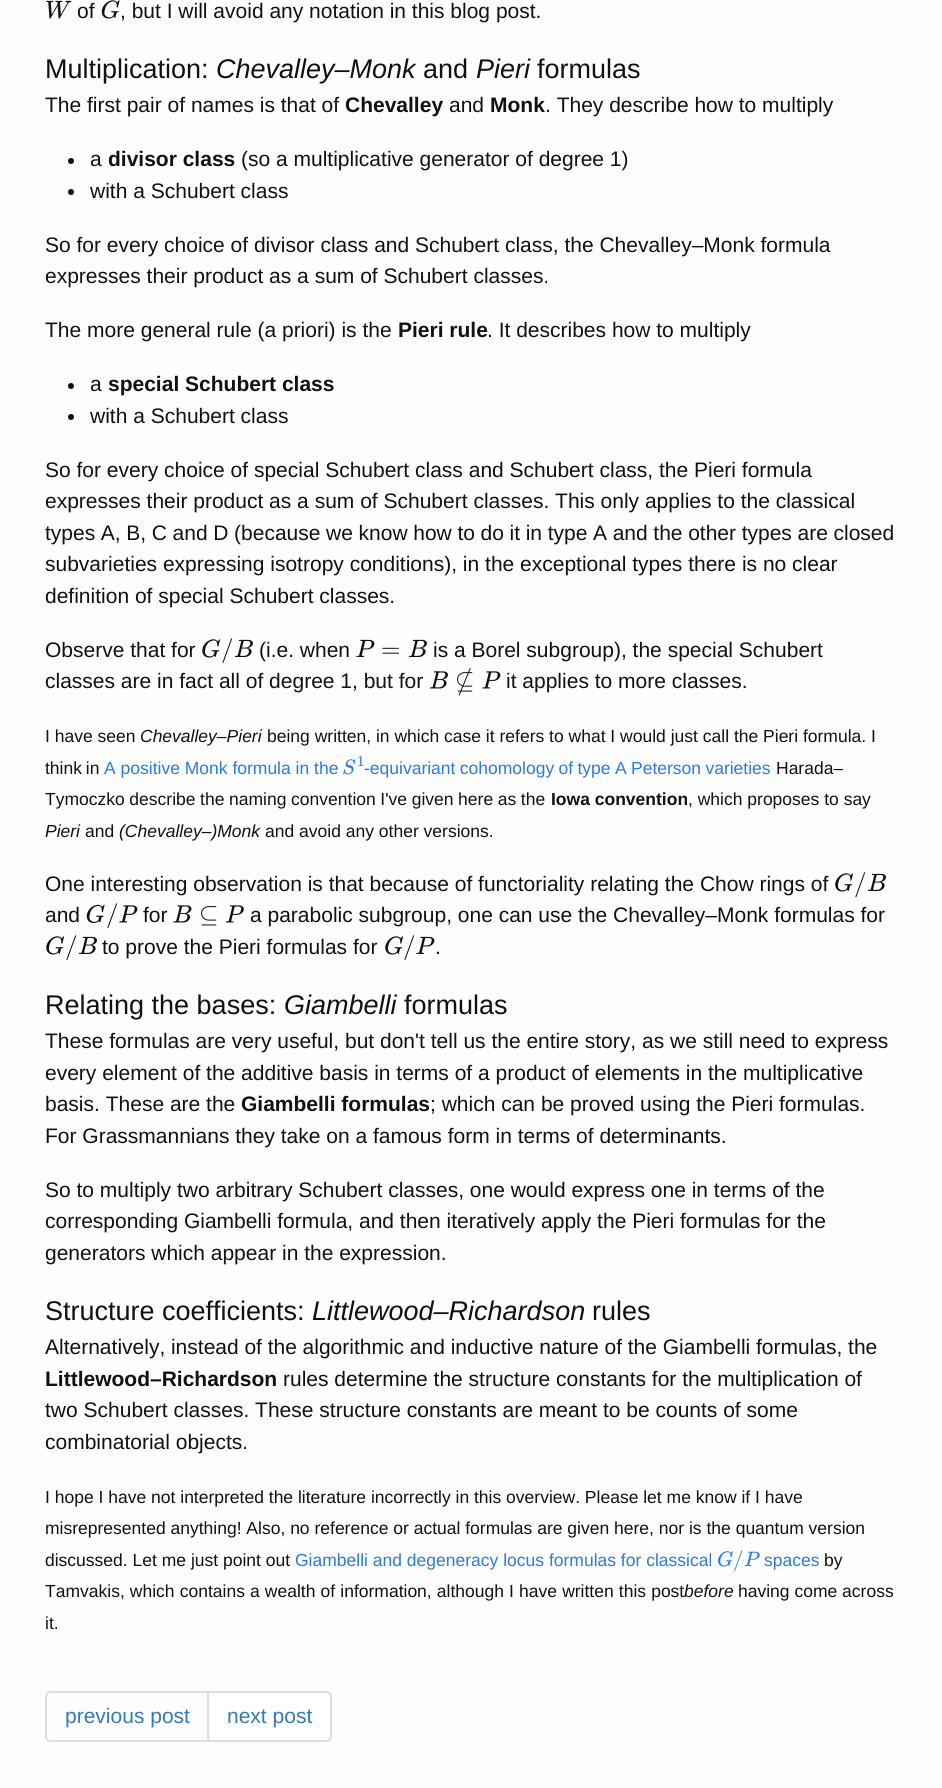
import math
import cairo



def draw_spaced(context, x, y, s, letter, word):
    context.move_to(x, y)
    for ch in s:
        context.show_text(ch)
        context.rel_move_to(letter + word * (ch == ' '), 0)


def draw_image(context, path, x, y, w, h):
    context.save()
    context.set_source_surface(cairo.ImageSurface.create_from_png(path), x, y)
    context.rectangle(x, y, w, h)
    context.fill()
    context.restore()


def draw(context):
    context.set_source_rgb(253 / 255, 253 / 255, 253 / 255)
    context.paint()
    draw_image(context, "images/1.png", 46, 0, 26, 19)
    draw_image(context, "images/2.png", 101, 0, 19, 19)
    context.set_source_rgb(17 / 255, 17 / 255, 17 / 255)
    context.arc(71, 161, 3, 0, 2 * math.pi)
    context.fill()
    context.arc(71, 192, 3, 0, 2 * math.pi)
    context.fill()
    context.arc(71, 386, 3, 0, 2 * math.pi)
    context.fill()
    context.arc(71, 417, 3, 0, 2 * math.pi)
    context.fill()
    draw_image(context, "images/3.png", 202, 639, 18, 19)
    draw_image(context, "images/4.png", 234, 639, 19, 18)
    draw_image(context, "images/5.png", 356, 639, 19, 18)
    draw_image(context, "images/4.png", 408, 639, 19, 18)
    draw_image(context, "images/6.png", 429, 671, 19, 18)
    draw_image(context, "images/7.png", 482, 671, 19, 18)
    draw_image(context, "images/8.png", 343, 759, 13, 16)
    draw_image(context, "images/3.png", 835, 873, 18, 19)
    draw_image(context, "images/4.png", 867, 873, 19, 18)
    draw_image(context, "images/9.png", 86, 904, 19, 20)
    draw_image(context, "images/7.png", 119, 905, 19, 18)
    draw_image(context, "images/10.png", 173, 905, 19, 18)
    draw_image(context, "images/11.png", 225, 905, 19, 18)
    draw_image(context, "images/3.png", 46, 936, 18, 19)
    draw_image(context, "images/4.png", 78, 936, 19, 18)
    draw_image(context, "images/3.png", 385, 936, 18, 19)
    draw_image(context, "images/5.png", 416, 936, 19, 18)
    draw_image(context, "images/12.png", 718, 1551, 15, 16)
    draw_image(context, "images/13.png", 744, 1551, 16, 15)
    context.new_path()
    context.move_to(51, 1692)
    context.line_to(208, 1692)
    context.line_to(208, 1741)
    context.line_to(51, 1741)
    context.curve_to(48, 1741, 46, 1739, 46, 1736)
    context.line_to(46, 1697)
    context.curve_to(46, 1694, 48, 1692, 51, 1692)
    context.close_path()
    context.set_source_rgb(221 / 255, 221 / 255, 221 / 255)
    context.stroke()
    context.set_source_rgb(1, 1, 1)
    context.new_path()
    context.move_to(208, 1692)
    context.line_to(326, 1692)
    context.curve_to(329, 1692, 331, 1694, 331, 1697)
    context.line_to(331, 1736)
    context.curve_to(331, 1739, 329, 1741, 326, 1741)
    context.line_to(208, 1741)
    context.close_path()
    context.fill_preserve()
    context.set_source_rgb(221 / 255, 221 / 255, 221 / 255)
    context.stroke()
    context.select_font_face("Liberation Sans")
    context.set_font_size(21)
    context.set_source_rgb(17 / 255, 17 / 255, 17 / 255)
    context.move_to(77, 18)
    context.show_text("of")
    context.move_to(120, 18)
    context.show_text(", but I will avoid any notation in this blog post.")
    context.set_font_size(27)
    context.move_to(45, 78)
    context.show_text("Multiplication:")
    context.select_font_face("Liberation Sans", cairo.FontSlant.ITALIC)
    context.move_to(216, 78)
    context.show_text("Chevalley–Monk")
    context.select_font_face("Liberation Sans")
    context.move_to(423, 78)
    context.show_text("and")
    context.select_font_face("Liberation Sans", cairo.FontSlant.ITALIC)
    context.move_to(476, 78)
    context.show_text("Pieri")
    context.select_font_face("Liberation Sans")
    context.move_to(537, 78)
    context.show_text("formulas")
    context.set_font_size(21)
    context.move_to(45, 112)
    context.show_text("The first pair of names is that of")
    context.select_font_face("Liberation Sans", cairo.FontSlant.NORMAL, cairo.FontWeight.BOLD)
    context.move_to(345, 112)
    context.show_text("Chevalley")
    context.select_font_face("Liberation Sans")
    context.move_to(449, 112)
    context.show_text("and")
    context.select_font_face("Liberation Sans", cairo.FontSlant.NORMAL, cairo.FontWeight.BOLD)
    context.move_to(490, 112)
    context.show_text("Monk")
    context.select_font_face("Liberation Sans")
    context.move_to(545, 112)
    context.show_text(". They describe how to multiply")
    context.move_to(90, 166)
    context.show_text("a")
    context.select_font_face("Liberation Sans", cairo.FontSlant.NORMAL, cairo.FontWeight.BOLD)
    context.move_to(108, 166)
    context.show_text("divisor class")
    context.select_font_face("Liberation Sans")
    context.move_to(241, 166)
    context.show_text("(so a multiplicative generator of degree 1)")
    context.move_to(90, 198)
    context.show_text("with a Schubert class")
    context.move_to(45, 252)
    context.show_text("So for every choice of divisor class and Schubert class, the Chevalley–Monk formula")
    context.move_to(45, 283)
    context.show_text("expresses their product as a sum of Schubert classes.")
    context.move_to(45, 337)
    context.show_text("The more general rule (a priori) is the")
    context.select_font_face("Liberation Sans", cairo.FontSlant.NORMAL, cairo.FontWeight.BOLD)
    context.move_to(398, 337)
    context.show_text("Pieri rule")
    context.select_font_face("Liberation Sans")
    context.move_to(487, 337)
    context.show_text(". It describes how to multiply")
    context.move_to(90, 391)
    context.show_text("a")
    context.select_font_face("Liberation Sans", cairo.FontSlant.NORMAL, cairo.FontWeight.BOLD)
    context.move_to(108, 391)
    context.show_text("special Schubert class")
    context.select_font_face("Liberation Sans")
    context.move_to(90, 423)
    context.show_text("with a Schubert class")
    context.move_to(45, 477)
    context.show_text("So for every choice of special Schubert class and Schubert class, the Pieri formula")
    context.move_to(45, 508)
    context.show_text("expresses their product as a sum of Schubert classes. This only applies to the classical")
    draw_spaced(context, 45, 540, "types A, B, C and D (because we know how to do it in type A and the other types are closed", 0, -0.2)
    context.move_to(45, 571)
    context.show_text("subvarieties expressing isotropy conditions), in the exceptional types there is no clear")
    context.move_to(45, 603)
    context.show_text("definition of special Schubert classes.")
    context.move_to(45, 657)
    context.show_text("Observe that for")
    context.select_font_face("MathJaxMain")
    context.set_font_size(25)
    context.move_to(221, 657)
    context.show_text("/")
    context.select_font_face("Liberation Sans")
    context.set_font_size(21)
    context.move_to(259, 657)
    context.show_text("(i.e. when")
    context.select_font_face("MathJaxMain")
    context.set_font_size(25)
    context.move_to(381, 657)
    context.show_text("=")
    context.select_font_face("Liberation Sans")
    context.set_font_size(21)
    context.move_to(433, 657)
    context.show_text("is a Borel subgroup), the special Schubert")
    context.move_to(45, 688)
    context.show_text("classes are in fact all of degree 1, but for")
    context.select_font_face("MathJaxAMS")
    context.set_font_size(25)
    context.move_to(455, 688)
    context.show_text("⊈")
    context.select_font_face("Liberation Sans")
    context.set_font_size(21)
    context.move_to(506, 688)
    context.show_text("it applies to more classes.")
    context.set_font_size(17.5)
    context.move_to(45, 742)
    context.show_text("I have seen")
    context.select_font_face("Liberation Sans", cairo.FontSlant.ITALIC)
    context.move_to(140, 742)
    context.show_text("Chevalley–Pieri")
    context.select_font_face("Liberation Sans")
    context.move_to(267, 742)
    context.show_text("being written, in which case it refers to what I would just call the Pieri formula. I")
    draw_spaced(context, 45, 774, "think in", 0, -1)
    context.set_source_rgb(42 / 255, 122 / 255, 226 / 255)
    context.move_to(104, 774)
    context.show_text("A positive Monk formula in the")
    context.select_font_face("MathJaxMain")
    context.set_font_size(15)
    context.move_to(357, 766)
    context.show_text("1")
    context.select_font_face("Liberation Sans")
    context.set_font_size(17.5)
    draw_spaced(context, 364, 774, "-equivariant cohomology of type A Peterson varieties", 0, -0.5)
    context.set_source_rgb(17 / 255, 17 / 255, 17 / 255)
    context.move_to(776, 774)
    context.show_text("Harada–")
    draw_spaced(context, 45, 805, "Tymoczko describe the naming convention I've given here as the", 0, -0.25)
    context.select_font_face("Liberation Sans", cairo.FontSlant.NORMAL, cairo.FontWeight.BOLD)
    context.move_to(551, 805)
    context.show_text("Iowa convention")
    context.select_font_face("Liberation Sans")
    context.move_to(688, 805)
    context.show_text(", which proposes to say")
    context.select_font_face("Liberation Sans", cairo.FontSlant.ITALIC)
    context.move_to(45, 837)
    context.show_text("Pieri")
    context.select_font_face("Liberation Sans")
    context.move_to(85, 837)
    context.show_text("and")
    context.select_font_face("Liberation Sans", cairo.FontSlant.ITALIC)
    context.move_to(119, 837)
    context.show_text("(Chevalley–)Monk")
    context.select_font_face("Liberation Sans")
    context.move_to(265, 837)
    context.show_text("and avoid any other versions.")
    context.set_font_size(21)
    context.move_to(45, 891)
    context.show_text("One interesting observation is that because of functoriality relating the Chow rings of")
    context.select_font_face("MathJaxMain")
    context.set_font_size(25)
    context.move_to(854, 891)
    context.show_text("/")
    context.select_font_face("Liberation Sans")
    context.set_font_size(21)
    context.move_to(45, 922)
    context.show_text("and")
    context.select_font_face("MathJaxMain")
    context.set_font_size(25)
    context.move_to(106, 922)
    context.show_text("/")
    context.select_font_face("Liberation Sans")
    context.set_font_size(21)
    context.move_to(143, 922)
    context.show_text("for")
    context.select_font_face("MathJaxMain")
    context.set_font_size(25)
    context.move_to(199, 922)
    context.show_text("⊆")
    context.select_font_face("Liberation Sans")
    context.set_font_size(21)
    context.move_to(250, 922)
    context.show_text("a parabolic subgroup, one can use the Chevalley–Monk formulas for")
    context.select_font_face("MathJaxMain")
    context.set_font_size(25)
    context.move_to(65, 954)
    context.show_text("/")
    context.select_font_face("Liberation Sans")
    context.set_font_size(21)
    context.move_to(102, 954)
    context.show_text("to prove the Pieri formulas for")
    context.select_font_face("MathJaxMain")
    context.set_font_size(25)
    context.move_to(403, 954)
    context.show_text("/")
    context.select_font_face("Liberation Sans")
    context.set_font_size(21)
    context.move_to(435, 954)
    context.show_text(".")
    context.set_font_size(27)
    context.move_to(45, 1014)
    context.show_text("Relating the bases:")
    context.select_font_face("Liberation Sans", cairo.FontSlant.ITALIC)
    context.move_to(284, 1014)
    context.show_text("Giambelli")
    context.select_font_face("Liberation Sans")
    context.move_to(404, 1014)
    context.show_text("formulas")
    context.set_font_size(21)
    context.move_to(45, 1048)
    context.show_text("These formulas are very useful, but don't tell us the entire story, as we still need to express")
    context.move_to(45, 1080)
    context.show_text("every element of the additive basis in terms of a product of elements in the multiplicative")
    context.move_to(45, 1111)
    context.show_text("basis. These are the")
    context.select_font_face("Liberation Sans", cairo.FontSlant.NORMAL, cairo.FontWeight.BOLD)
    context.move_to(241, 1111)
    context.show_text("Giambelli formulas")
    context.select_font_face("Liberation Sans")
    context.move_to(430, 1111)
    context.show_text("; which can be proved using the Pieri formulas.")
    context.move_to(45, 1143)
    context.show_text("For Grassmannians they take on a famous form in terms of determinants.")
    context.move_to(45, 1197)
    context.show_text("So to multiply two arbitrary Schubert classes, one would express one in terms of the")
    context.move_to(45, 1228)
    context.show_text("corresponding Giambelli formula, and then iteratively apply the Pieri formulas for the")
    context.move_to(45, 1260)
    context.show_text("generators which appear in the expression.")
    context.set_font_size(27)
    context.move_to(45, 1320)
    context.show_text("Structure coefficients:")
    context.select_font_face("Liberation Sans", cairo.FontSlant.ITALIC)
    context.move_to(312, 1320)
    context.show_text("Littlewood–Richardson")
    context.select_font_face("Liberation Sans")
    context.move_to(592, 1320)
    context.show_text("rules")
    context.set_font_size(21)
    draw_spaced(context, 45, 1354, "Alternatively, instead of the algorithmic and inductive nature of the Giambelli formulas, the", 0, -0.1)
    context.select_font_face("Liberation Sans", cairo.FontSlant.NORMAL, cairo.FontWeight.BOLD)
    context.move_to(45, 1386)
    context.show_text("Littlewood–Richardson")
    context.select_font_face("Liberation Sans")
    context.move_to(283, 1386)
    context.show_text("rules determine the structure constants for the multiplication of")
    context.move_to(45, 1417)
    context.show_text("two Schubert classes. These structure constants are meant to be counts of some")
    context.move_to(45, 1449)
    context.show_text("combinatorial objects.")
    context.set_font_size(17.5)
    context.move_to(45, 1503)
    context.show_text("I hope I have not interpreted the literature incorrectly in this overview. Please let me know if I have")
    context.move_to(45, 1534)
    context.show_text("misrepresented anything! Also, no reference or actual formulas are given here, nor is the quantum version")
    context.move_to(45, 1566)
    context.show_text("discussed. Let me just point out")
    context.set_source_rgb(42 / 255, 122 / 255, 226 / 255)
    context.move_to(295, 1566)
    context.show_text("Giambelli and degeneracy locus formulas for classical")
    context.select_font_face("MathJaxMain")
    context.set_font_size(21)
    context.move_to(733, 1566)
    context.show_text("/")
    context.select_font_face("Liberation Sans")
    context.set_font_size(17.5)
    context.move_to(764, 1566)
    context.show_text("spaces")
    context.set_source_rgb(17 / 255, 17 / 255, 17 / 255)
    context.move_to(824, 1566)
    context.show_text("by")
    draw_spaced(context, 45, 1597, "Tamvakis, which contains a wealth of information, although I have written this post", 0, 0.25)
    context.select_font_face("Liberation Sans", cairo.FontSlant.ITALIC)
    context.move_to(684, 1597)
    context.show_text("before")
    context.select_font_face("Liberation Sans")
    context.move_to(738, 1597)
    context.show_text("having come across")
    context.move_to(45, 1629)
    context.show_text("it.")
    context.set_font_size(21)
    context.set_source_rgb(51 / 255, 122 / 255, 183 / 255)
    context.move_to(65, 1723)
    context.show_text("previous post")
    context.move_to(227, 1723)
    context.show_text("next post")


surface = cairo.ImageSurface(cairo.Format.RGB24, 942, 1788)
context = cairo.Context(surface)
options = cairo.FontOptions()
options.set_hint_metrics(cairo.HintMetrics.OFF)
options.set_hint_style(cairo.HintStyle.NONE)
context.set_font_options(options)
context.set_miter_limit(4)
draw(context)
surface.write_to_png("out.png")
